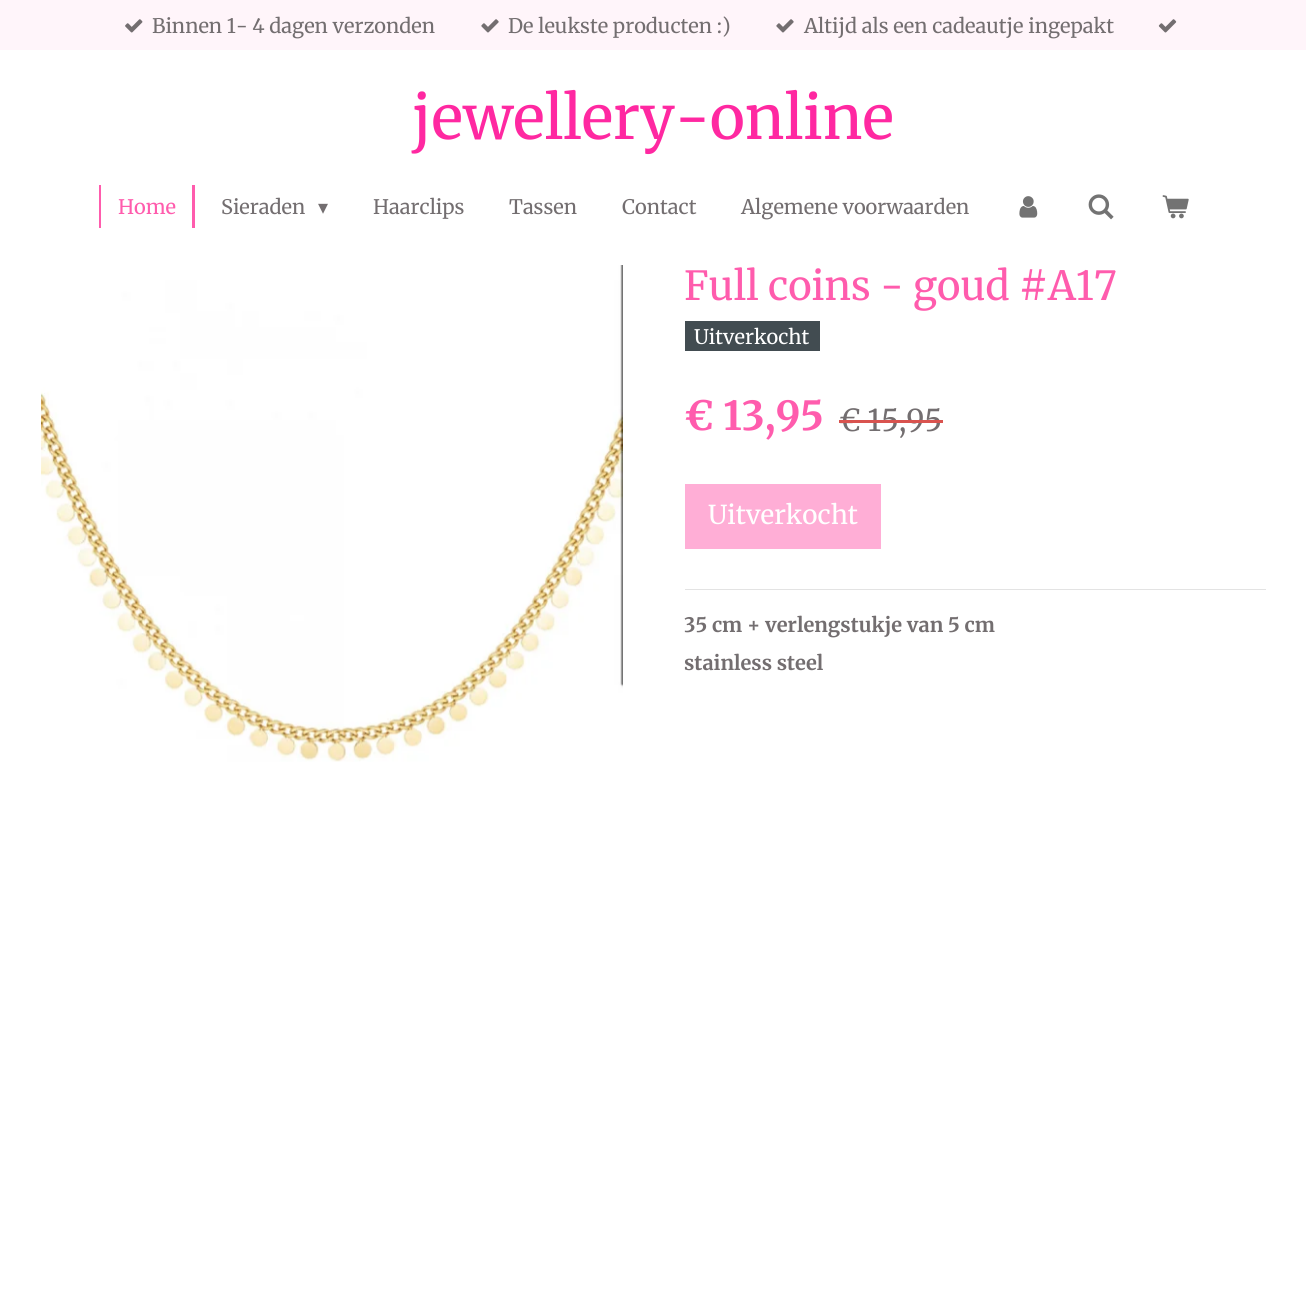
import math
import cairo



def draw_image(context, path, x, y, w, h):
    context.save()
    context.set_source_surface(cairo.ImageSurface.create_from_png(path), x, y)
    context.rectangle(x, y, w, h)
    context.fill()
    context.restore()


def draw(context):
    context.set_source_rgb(1, 1, 1)
    context.paint()
    context.set_source_rgb(1, 245 / 255, 250 / 255)
    context.rectangle(0, 0, 1306, 50)
    context.fill()
    draw_image(context, "images/1.png", 125, 19, 18, 14)
    draw_image(context, "images/2.png", 481, 19, 18, 14)
    draw_image(context, "images/2.png", 776, 19, 18, 14)
    draw_image(context, "images/3.png", 1158, 19, 19, 14)
    context.set_source_rgb(1, 92 / 255, 173 / 255)
    context.new_path()
    context.move_to(104, 228)
    context.line_to(195, 228)
    context.line_to(195, 185)
    context.line_to(192, 185)
    context.line_to(192, 228)
    context.close_path()
    context.fill()
    context.new_path()
    context.move_to(99, 185)
    context.line_to(99, 228)
    context.line_to(190, 228)
    context.line_to(101, 228)
    context.line_to(101, 185)
    context.close_path()
    context.fill()
    draw_image(context, "images/4.png", 1019, 196, 19, 22)
    draw_image(context, "images/5.png", 1088, 194, 26, 26)
    draw_image(context, "images/6.png", 1162, 195, 27, 24)
    draw_image(context, "images/7.png", 41, 265, 582, 497)
    context.set_source_rgb(66 / 255, 76 / 255, 81 / 255)
    context.rectangle(685, 321, 135, 30)
    context.fill()
    context.set_source_rgb(1, 174 / 255, 214 / 255)
    context.rectangle(685, 484, 196, 65)
    context.fill()
    context.set_source_rgb(227 / 255, 227 / 255, 227 / 255)
    context.rectangle(685, 589, 581, 1)
    context.fill()
    context.select_font_face("Merriweather")
    context.set_font_size(20)
    context.set_source_rgb(115 / 255, 110 / 255, 112 / 255)
    context.move_to(152, 33)
    context.show_text("Binnen 1- 4 dagen verzonden")
    context.move_to(508, 33)
    context.show_text("De leukste producten :)")
    context.move_to(804, 33)
    context.show_text("Altijd als een cadeautje ingepakt")
    context.set_font_size(60)
    context.set_source_rgb(1, 40 / 255, 161 / 255)
    context.move_to(412, 139)
    context.show_text("jewellery-online")
    context.set_font_size(20)
    context.set_source_rgb(1, 92 / 255, 173 / 255)
    context.move_to(118, 214)
    context.show_text("Home")
    context.set_source_rgb(115 / 255, 110 / 255, 112 / 255)
    context.move_to(221, 214)
    context.show_text("Sieraden")
    context.select_font_face("DejaVu Sans")
    context.move_to(318, 214)
    context.show_text("▾")
    context.select_font_face("Merriweather")
    context.move_to(373, 214)
    context.show_text("Haarclips")
    context.move_to(509, 214)
    context.show_text("Tassen")
    context.move_to(622, 214)
    context.show_text("Contact")
    context.move_to(741, 214)
    context.show_text("Algemene voorwaarden")
    context.set_font_size(40)
    context.set_source_rgb(1, 92 / 255, 173 / 255)
    context.move_to(684, 300)
    context.show_text("Full coins - goud #A17")
    context.set_font_size(20)
    context.set_source_rgb(1, 1, 1)
    context.move_to(694, 344)
    context.show_text("Uitverkocht")
    context.select_font_face("Merriweather", cairo.FontSlant.NORMAL, cairo.FontWeight.BOLD)
    context.set_font_size(40)
    context.set_source_rgb(1, 92 / 255, 173 / 255)
    context.move_to(684, 430)
    context.show_text("€ 13,95")
    context.select_font_face("Merriweather")
    context.set_font_size(30)
    context.set_source_rgb(115 / 255, 110 / 255, 112 / 255)
    context.move_to(839, 431)
    context.show_text("€ 15,95")
    context.set_source_rgb(217 / 255, 83 / 255, 79 / 255)
    context.rectangle(839, 420, 104, 3)
    context.fill()
    context.set_font_size(26)
    context.set_source_rgb(1, 1, 1)
    context.move_to(708, 524)
    context.show_text("Uitverkocht")
    context.select_font_face("Merriweather", cairo.FontSlant.NORMAL, cairo.FontWeight.BOLD)
    context.set_font_size(20)
    context.set_source_rgb(115 / 255, 110 / 255, 112 / 255)
    context.move_to(684, 632)
    context.show_text("35 cm + verlengstukje van 5 cm")
    context.move_to(684, 670)
    context.show_text("stainless steel")


surface = cairo.ImageSurface(cairo.Format.RGB24, 1306, 1291)
context = cairo.Context(surface)
options = cairo.FontOptions()
options.set_hint_metrics(cairo.HintMetrics.OFF)
options.set_hint_style(cairo.HintStyle.NONE)
context.set_font_options(options)
context.set_miter_limit(4)
draw(context)
surface.write_to_png("out.png")
